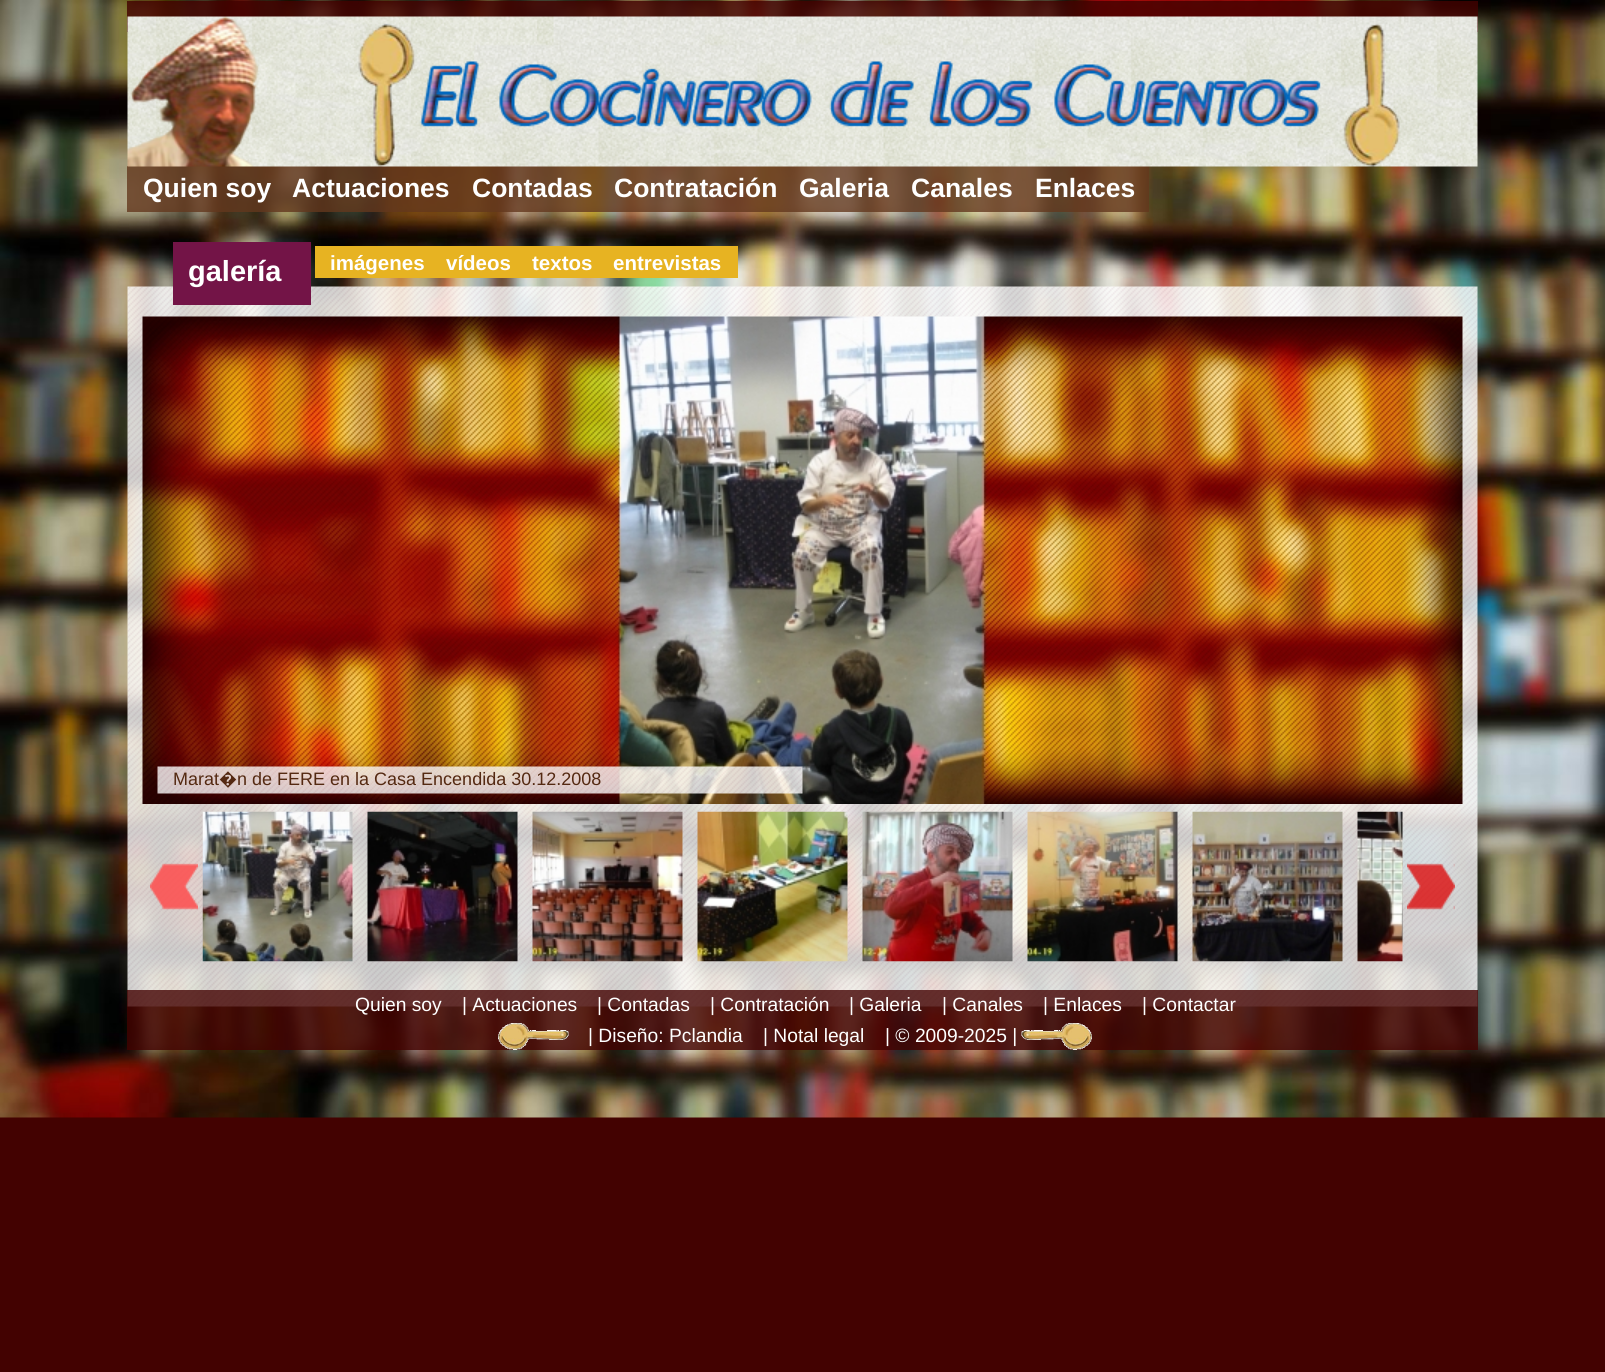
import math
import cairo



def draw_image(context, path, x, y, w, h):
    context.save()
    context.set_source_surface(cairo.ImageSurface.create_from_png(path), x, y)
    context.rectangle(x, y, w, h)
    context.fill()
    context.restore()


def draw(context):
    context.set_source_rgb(67 / 255, 2 / 255, 1 / 255)
    context.paint()
    draw_image(context, "images/1.png", 0, 0, 1605, 1118)
    context.set_source_rgba(67 / 255, 2 / 255, 1 / 255, 0.8)
    context.rectangle(127, 1, 1351, 31)
    context.fill()
    context.set_source_rgba(99 / 255, 56 / 255, 29 / 255, 0.8)
    context.rectangle(127, 166, 1022, 46)
    context.fill()
    draw_image(context, "images/2.png", 127, 16, 1351, 151)
    draw_image(context, "images/3.png", 127, 286, 1351, 721)
    context.set_source_rgb(115 / 255, 20 / 255, 71 / 255)
    context.rectangle(173, 242, 138, 63)
    context.fill()
    context.set_source_rgb(231 / 255, 179 / 255, 34 / 255)
    context.rectangle(315, 246, 423, 32)
    context.fill()
    draw_image(context, "images/4.png", 142, 316, 1321, 488)
    draw_image(context, "images/5.png", 157, 766, 646, 28)
    draw_image(context, "images/6.png", 150, 863, 48, 47)
    draw_image(context, "images/7.png", 202, 811, 151, 151)
    draw_image(context, "images/8.png", 367, 811, 151, 151)
    draw_image(context, "images/9.png", 532, 811, 151, 151)
    draw_image(context, "images/10.png", 697, 811, 151, 151)
    draw_image(context, "images/11.png", 862, 811, 151, 151)
    draw_image(context, "images/12.png", 1027, 811, 151, 151)
    draw_image(context, "images/13.png", 1192, 811, 151, 151)
    draw_image(context, "images/14.png", 1357, 811, 46, 151)
    draw_image(context, "images/15.png", 1407, 863, 48, 47)
    context.set_source_rgba(67 / 255, 2 / 255, 1 / 255, 0.8)
    context.rectangle(127, 990, 1351, 30)
    context.fill()
    context.rectangle(127, 1020, 1351, 30)
    context.fill()
    draw_image(context, "images/16.png", 498, 1023, 71, 27)
    draw_image(context, "images/17.png", 1021, 1023, 71, 27)
    context.select_font_face("Liberation Sans", cairo.FontSlant.NORMAL, cairo.FontWeight.BOLD)
    context.set_font_size(26.5)
    context.set_source_rgb(1, 1, 1)
    context.move_to(143, 197)
    context.show_text("Quien soy")
    context.move_to(292, 197)
    context.show_text("Actuaciones")
    context.move_to(472, 197)
    context.show_text("Contadas")
    context.move_to(614, 197)
    context.show_text("Contratación")
    context.move_to(799, 197)
    context.show_text("Galeria")
    context.move_to(911, 197)
    context.show_text("Canales")
    context.move_to(1035, 197)
    context.show_text("Enlaces")
    context.set_font_size(29)
    context.move_to(188, 281)
    context.show_text("galería")
    context.set_font_size(20.5)
    context.move_to(330, 270)
    context.show_text("imágenes")
    context.move_to(446, 270)
    context.show_text("vídeos")
    context.move_to(532, 270)
    context.show_text("textos")
    context.move_to(613, 270)
    context.show_text("entrevistas")
    context.select_font_face("Liberation Sans")
    context.set_font_size(18)
    context.set_source_rgb(84 / 255, 41 / 255, 17 / 255)
    context.move_to(173, 785)
    context.show_text("Marat")
    context.select_font_face("Noto Sans")
    context.move_to(219, 785)
    context.show_text("�")
    context.select_font_face("Liberation Sans")
    context.move_to(237, 785)
    context.show_text("n de FERE en la Casa Encendida 30.12.2008")
    context.set_font_size(19.25)
    context.set_source_rgb(1, 1, 1)
    context.move_to(355, 1011)
    context.show_text("Quien soy")
    context.move_to(462, 1011)
    context.show_text("| Actuaciones")
    context.move_to(597, 1011)
    context.show_text("| Contadas")
    context.move_to(710, 1011)
    context.show_text("| Contratación")
    context.move_to(849, 1011)
    context.show_text("| Galeria")
    context.move_to(942, 1011)
    context.show_text("| Canales")
    context.move_to(1043, 1011)
    context.show_text("| Enlaces")
    context.move_to(1142, 1011)
    context.show_text("| Contactar")
    context.move_to(588, 1042)
    context.show_text("| Diseño: Pclandia")
    context.move_to(763, 1042)
    context.show_text("| Notal legal")
    context.move_to(885, 1042)
    context.show_text("| © 2009-2025 |")


surface = cairo.ImageSurface(cairo.Format.RGB24, 1605, 1372)
context = cairo.Context(surface)
options = cairo.FontOptions()
options.set_hint_metrics(cairo.HintMetrics.OFF)
options.set_hint_style(cairo.HintStyle.NONE)
context.set_font_options(options)
context.set_miter_limit(4)
draw(context)
surface.write_to_png("out.png")
